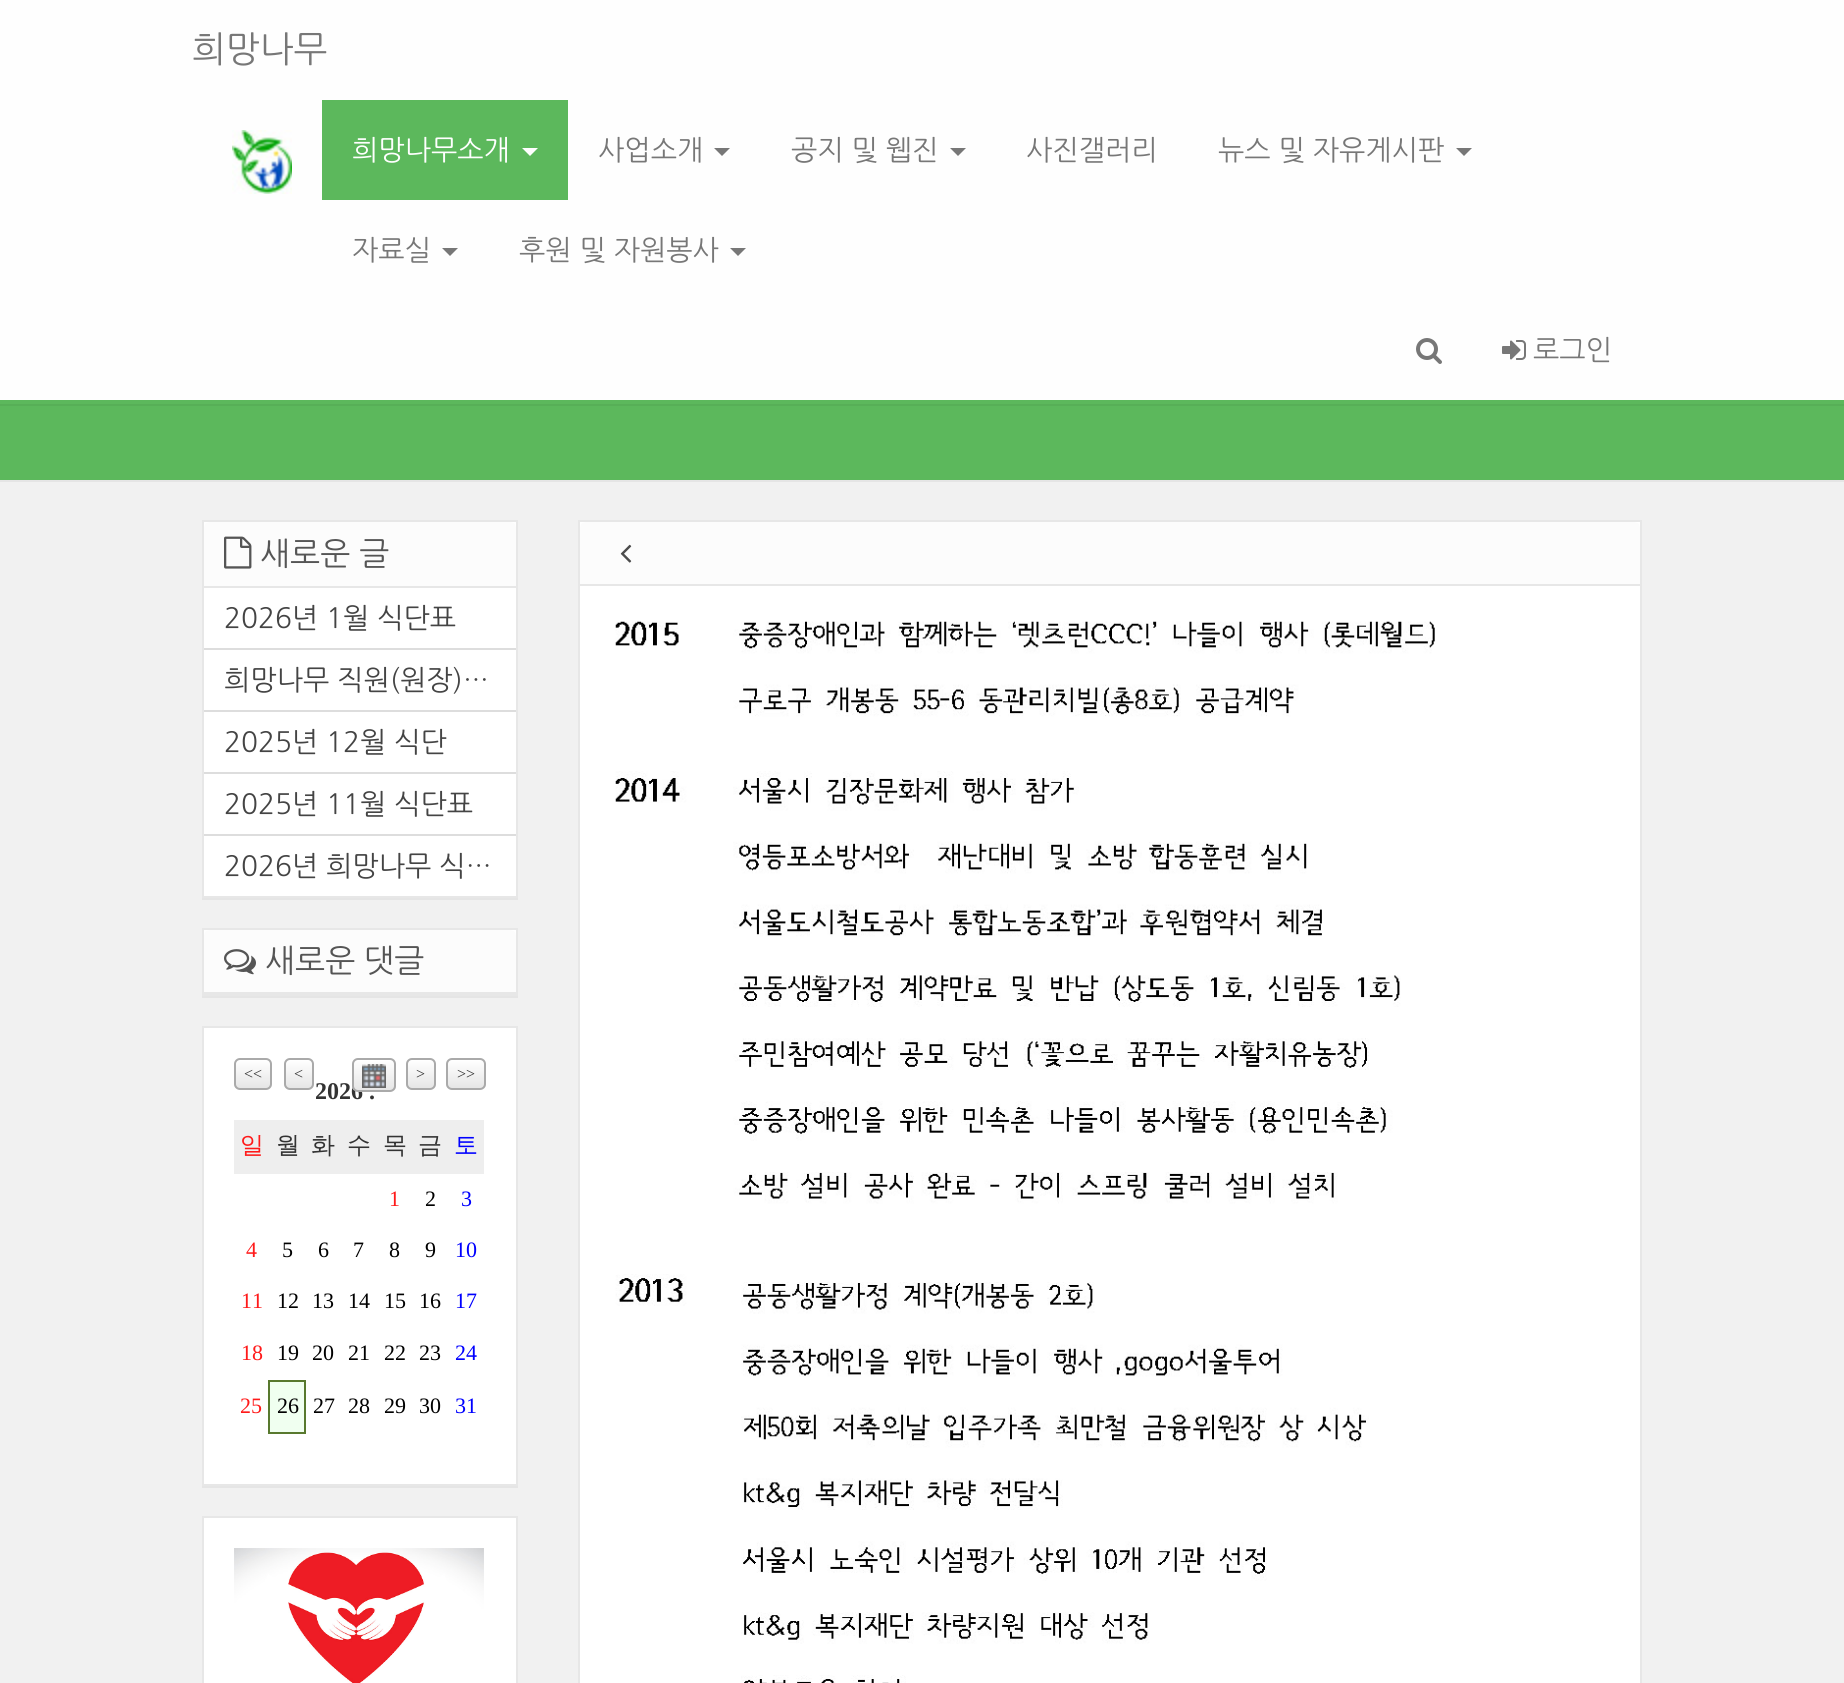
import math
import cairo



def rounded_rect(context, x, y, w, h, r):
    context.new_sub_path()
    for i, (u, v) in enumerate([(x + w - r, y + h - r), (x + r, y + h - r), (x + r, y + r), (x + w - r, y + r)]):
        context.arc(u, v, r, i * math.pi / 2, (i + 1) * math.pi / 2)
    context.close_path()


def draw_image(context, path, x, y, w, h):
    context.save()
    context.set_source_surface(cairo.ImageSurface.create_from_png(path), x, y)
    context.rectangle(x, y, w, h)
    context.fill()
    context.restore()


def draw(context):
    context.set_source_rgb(241 / 255, 241 / 255, 241 / 255)
    context.paint()
    context.set_source_rgb(92 / 255, 184 / 255, 92 / 255)
    context.rectangle(0, 400, 1844, 80)
    context.fill()
    context.set_source_rgb(87 / 255, 175 / 255, 87 / 255)
    context.rectangle(0, 404, 1844, 2)
    context.fill()
    context.set_source_rgb(254 / 255, 254 / 255, 254 / 255)
    context.rectangle(0, 0, 1844, 400)
    context.fill()
    draw_image(context, "images/1.png", 232, 130, 60, 64)
    context.set_source_rgb(92 / 255, 184 / 255, 92 / 255)
    context.rectangle(322, 100, 246, 100)
    context.fill()
    context.set_source_rgb(1, 1, 1)
    context.new_path()
    context.move_to(522, 148)
    context.line_to(538, 148)
    context.line_to(530, 156)
    context.close_path()
    context.fill()
    context.set_source_rgb(119 / 255, 119 / 255, 119 / 255)
    context.new_path()
    context.move_to(714, 148)
    context.line_to(730, 148)
    context.line_to(722, 156)
    context.close_path()
    context.fill()
    context.new_path()
    context.move_to(950, 148)
    context.line_to(966, 148)
    context.line_to(958, 156)
    context.close_path()
    context.fill()
    context.new_path()
    context.move_to(1456, 148)
    context.line_to(1472, 148)
    context.line_to(1464, 156)
    context.close_path()
    context.fill()
    context.new_path()
    context.move_to(442, 248)
    context.line_to(458, 248)
    context.line_to(450, 256)
    context.close_path()
    context.fill()
    context.new_path()
    context.move_to(730, 248)
    context.line_to(746, 248)
    context.line_to(738, 256)
    context.close_path()
    context.fill()
    draw_image(context, "images/2.png", 1416, 338, 26, 26)
    draw_image(context, "images/3.png", 1502, 340, 24, 20)
    context.set_source_rgb(229 / 255, 229 / 255, 229 / 255)
    context.rectangle(0, 480, 1844, 2)
    context.fill()
    context.rectangle(202, 898, 316, 2)
    context.fill()
    context.set_source_rgb(1, 1, 1)
    context.rectangle(203, 521, 314, 376)
    context.fill_preserve()
    context.set_source_rgb(231 / 255, 231 / 255, 231 / 255)
    context.stroke()
    context.set_source_rgb(252 / 255, 252 / 255, 252 / 255)
    context.new_path()
    context.move_to(210, 522)
    context.line_to(510, 522)
    context.curve_to(513.5, 522, 516, 524.5, 516, 528)
    context.line_to(516, 588)
    context.line_to(204, 588)
    context.line_to(204, 528)
    context.curve_to(204, 524.5, 206.5, 522, 210, 522)
    context.close_path()
    context.fill()
    context.set_source_rgb(231 / 255, 231 / 255, 231 / 255)
    context.rectangle(204, 586, 312, 2)
    context.fill()
    draw_image(context, "images/4.png", 224, 536, 28, 33)
    context.set_source_rgb(221 / 255, 221 / 255, 221 / 255)
    context.rectangle(204, 648, 312, 2)
    context.fill()
    context.rectangle(204, 710, 312, 2)
    context.fill()
    context.rectangle(204, 772, 312, 2)
    context.fill()
    context.rectangle(204, 834, 312, 2)
    context.fill()
    context.set_source_rgb(229 / 255, 229 / 255, 229 / 255)
    context.rectangle(202, 996, 316, 2)
    context.fill()
    context.set_source_rgb(1, 1, 1)
    context.rectangle(204, 930, 312, 6)
    context.fill()
    context.rectangle(203, 929, 314, 66)
    context.set_source_rgb(231 / 255, 231 / 255, 231 / 255)
    context.stroke()
    context.set_source_rgb(252 / 255, 252 / 255, 252 / 255)
    context.new_path()
    context.move_to(210, 930)
    context.line_to(510, 930)
    context.curve_to(513.5, 930, 516, 932.5, 516, 936)
    context.line_to(516, 994)
    context.line_to(204, 994)
    context.line_to(204, 936)
    context.curve_to(204, 932.5, 206.5, 930, 210, 930)
    context.close_path()
    context.fill()
    context.set_source_rgb(231 / 255, 231 / 255, 231 / 255)
    context.rectangle(204, 992, 312, 2)
    context.fill()
    draw_image(context, "images/5.png", 224, 949, 32, 26)
    context.set_source_rgb(229 / 255, 229 / 255, 229 / 255)
    context.rectangle(202, 1486, 316, 2)
    context.fill()
    context.set_source_rgb(1, 1, 1)
    context.rectangle(203, 1027, 314, 458)
    context.fill_preserve()
    context.set_source_rgb(231 / 255, 231 / 255, 231 / 255)
    context.stroke()
    context.save()
    rounded_rect(context, 234, 1058, 38, 32, 6)
    context.clip()
    gradient = cairo.LinearGradient(253, 1060, 253, 1088)
    gradient.add_color_stop_rgba(0, 1, 1, 1, 1)
    gradient.add_color_stop_rgba(1, 230 / 255, 230 / 255, 230 / 255, 1)
    context.set_source(gradient)
    context.rectangle(234, 1060, 38, 28)
    context.fill()
    context.restore()
    rounded_rect(context, 235, 1059, 36, 30, 5)
    context.set_source_rgb(170 / 255, 170 / 255, 170 / 255)
    context.stroke()
    context.save()
    rounded_rect(context, 284, 1058, 30, 32, 6)
    context.clip()
    gradient = cairo.LinearGradient(299, 1060, 299, 1088)
    gradient.add_color_stop_rgba(0, 1, 1, 1, 1)
    gradient.add_color_stop_rgba(1, 230 / 255, 230 / 255, 230 / 255, 1)
    context.set_source(gradient)
    context.rectangle(284, 1060, 30, 28)
    context.fill()
    context.restore()
    rounded_rect(context, 285, 1059, 28, 30, 5)
    context.stroke()
    context.save()
    rounded_rect(context, 406, 1058, 30, 32, 6)
    context.clip()
    gradient = cairo.LinearGradient(421, 1060, 421, 1088)
    gradient.add_color_stop_rgba(0, 1, 1, 1, 1)
    gradient.add_color_stop_rgba(1, 230 / 255, 230 / 255, 230 / 255, 1)
    context.set_source(gradient)
    context.rectangle(406, 1060, 30, 28)
    context.fill()
    context.restore()
    rounded_rect(context, 407, 1059, 28, 30, 5)
    context.stroke()
    context.save()
    rounded_rect(context, 446, 1058, 40, 32, 6)
    context.clip()
    gradient = cairo.LinearGradient(466, 1060, 466, 1088)
    gradient.add_color_stop_rgba(0, 1, 1, 1, 1)
    gradient.add_color_stop_rgba(1, 230 / 255, 230 / 255, 230 / 255, 1)
    context.set_source(gradient)
    context.rectangle(446, 1060, 40, 28)
    context.fill()
    context.restore()
    rounded_rect(context, 447, 1059, 38, 30, 5)
    context.stroke()
    context.set_source_rgb(238 / 255, 238 / 255, 238 / 255)
    context.rectangle(234, 1120, 250, 54)
    context.fill()
    context.set_source_rgb(240 / 255, 1, 240 / 255)
    context.rectangle(270, 1382, 34, 50)
    context.fill()
    context.set_source_rgb(88 / 255, 121 / 255, 46 / 255)
    context.rectangle(268, 1380, 38, 2)
    context.fill()
    context.rectangle(304, 1380, 2, 54)
    context.fill()
    context.rectangle(268, 1432, 38, 2)
    context.fill()
    context.rectangle(268, 1380, 2, 54)
    context.fill()
    context.set_source_rgb(1, 1, 1)
    context.rectangle(203, 1517, 314, 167)
    context.fill_preserve()
    context.set_source_rgb(231 / 255, 231 / 255, 231 / 255)
    context.stroke()
    draw_image(context, "images/7.png", 234, 1548, 250, 135)
    context.set_source_rgb(1, 1, 1)
    context.rectangle(579, 521, 1062, 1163)
    context.fill_preserve()
    context.set_source_rgb(231 / 255, 231 / 255, 231 / 255)
    context.stroke()
    context.set_source_rgb(252 / 255, 252 / 255, 252 / 255)
    context.new_path()
    context.move_to(586, 522)
    context.line_to(1634, 522)
    context.curve_to(1637.5, 522, 1640, 524.5, 1640, 528)
    context.line_to(1640, 586)
    context.line_to(580, 586)
    context.line_to(580, 528)
    context.curve_to(580, 524.5, 582.5, 522, 586, 522)
    context.close_path()
    context.fill()
    context.set_source_rgb(231 / 255, 231 / 255, 231 / 255)
    context.rectangle(580, 584, 1060, 2)
    context.fill()
    draw_image(context, "images/8.png", 620, 544, 12, 19)
    draw_image(context, "images/9.png", 615, 621, 820, 1062)
    context.select_font_face("NanumGothic")
    context.set_font_size(36)
    context.set_source_rgb(119 / 255, 119 / 255, 119 / 255)
    context.move_to(192, 62)
    context.show_text("희망나무")
    context.set_font_size(28)
    context.set_source_rgb(1, 1, 1)
    context.move_to(352, 160)
    context.show_text("희망나무소개")
    context.set_source_rgb(119 / 255, 119 / 255, 119 / 255)
    context.move_to(598, 160)
    context.show_text("사업소개")
    context.move_to(791, 160)
    context.show_text("공지 및 웹진")
    context.move_to(1026, 160)
    context.show_text("사진갤러리")
    context.move_to(1218, 160)
    context.show_text("뉴스 및 자유게시판")
    context.move_to(352, 260)
    context.show_text("자료실")
    context.move_to(519, 260)
    context.show_text("후원 및 자원봉사")
    context.move_to(1533, 360)
    context.show_text("로그인")
    context.set_font_size(32)
    context.set_source_rgb(85 / 255, 85 / 255, 85 / 255)
    context.move_to(260, 565)
    context.show_text("새로운 글")
    context.set_font_size(28)
    context.set_source_rgb(68 / 255, 68 / 255, 68 / 255)
    context.move_to(224, 628)
    context.show_text("2026년 1월 식단표")
    context.move_to(224, 690)
    context.show_text("희망나무 직원(원장)…")
    context.move_to(224, 752)
    context.show_text("2025년 12월 식단")
    context.move_to(224, 814)
    context.show_text("2025년 11월 식단표")
    context.move_to(224, 876)
    context.show_text("2026년 희망나무 식…")
    context.set_font_size(32)
    context.set_source_rgb(85 / 255, 85 / 255, 85 / 255)
    context.move_to(265, 972)
    context.show_text("새로운 댓글")
    context.select_font_face("Liberation Serif")
    context.set_font_size(16)
    context.set_source_rgb(51 / 255, 51 / 255, 51 / 255)
    context.move_to(244, 1079)
    context.show_text("<<")
    context.move_to(294, 1079)
    context.show_text("<")
    context.move_to(416, 1079)
    context.show_text(">")
    context.move_to(457, 1079)
    context.show_text(">>")
    context.select_font_face("Liberation Serif", cairo.FontSlant.NORMAL, cairo.FontWeight.BOLD)
    context.set_font_size(24)
    context.move_to(315, 1099)
    context.show_text("2026 .")
    context.save()
    rounded_rect(context, 352, 1058, 44, 34, 6)
    context.clip()
    gradient = cairo.LinearGradient(374, 1060, 374, 1090)
    gradient.add_color_stop_rgba(0, 1, 1, 1, 1)
    gradient.add_color_stop_rgba(1, 230 / 255, 230 / 255, 230 / 255, 1)
    context.set_source(gradient)
    context.rectangle(352, 1060, 44, 30)
    context.fill()
    context.restore()
    rounded_rect(context, 353, 1059, 42, 32, 5)
    context.set_source_rgb(170 / 255, 170 / 255, 170 / 255)
    context.stroke()
    draw_image(context, "images/6.png", 362, 1064, 24, 24)
    context.select_font_face("WenQuanYi Zen Hei Medium")
    context.set_source_rgb(1, 26 / 255, 26 / 255)
    context.move_to(240, 1153)
    context.show_text("일")
    context.set_source_rgb(51 / 255, 51 / 255, 51 / 255)
    context.move_to(276, 1153)
    context.show_text("월")
    context.move_to(311, 1153)
    context.show_text("화")
    context.move_to(347, 1153)
    context.show_text("수")
    context.move_to(383, 1153)
    context.show_text("목")
    context.move_to(418, 1153)
    context.show_text("금")
    context.set_source_rgb(0, 0, 1)
    context.move_to(454, 1153)
    context.show_text("토")
    context.select_font_face("Liberation Serif")
    context.set_font_size(22)
    context.set_source_rgb(1, 26 / 255, 26 / 255)
    context.move_to(389, 1206)
    context.show_text("1")
    context.set_source_rgb(0, 0, 0)
    context.move_to(425, 1206)
    context.show_text("2")
    context.set_source_rgb(0, 0, 1)
    context.move_to(461, 1206)
    context.show_text("3")
    context.set_source_rgb(1, 26 / 255, 26 / 255)
    context.move_to(246, 1257)
    context.show_text("4")
    context.set_source_rgb(0, 0, 0)
    context.move_to(282, 1257)
    context.show_text("5")
    context.move_to(318, 1257)
    context.show_text("6")
    context.move_to(353, 1257)
    context.show_text("7")
    context.move_to(389, 1257)
    context.show_text("8")
    context.move_to(425, 1257)
    context.show_text("9")
    context.set_source_rgb(0, 0, 1)
    context.move_to(455, 1257)
    context.show_text("10")
    context.set_source_rgb(1, 26 / 255, 26 / 255)
    context.move_to(241, 1308)
    context.show_text("11")
    context.set_source_rgb(0, 0, 0)
    context.move_to(277, 1308)
    context.show_text("12")
    context.move_to(312, 1308)
    context.show_text("13")
    context.move_to(348, 1308)
    context.show_text("14")
    context.move_to(384, 1308)
    context.show_text("15")
    context.move_to(419, 1308)
    context.show_text("16")
    context.set_source_rgb(0, 0, 1)
    context.move_to(455, 1308)
    context.show_text("17")
    context.set_source_rgb(1, 26 / 255, 26 / 255)
    context.move_to(241, 1360)
    context.show_text("18")
    context.set_source_rgb(0, 0, 0)
    context.move_to(277, 1360)
    context.show_text("19")
    context.move_to(312, 1360)
    context.show_text("20")
    context.move_to(348, 1360)
    context.show_text("21")
    context.move_to(384, 1360)
    context.show_text("22")
    context.move_to(419, 1360)
    context.show_text("23")
    context.set_source_rgb(0, 0, 1)
    context.move_to(455, 1360)
    context.show_text("24")
    context.set_source_rgb(1, 26 / 255, 26 / 255)
    context.move_to(240, 1413)
    context.show_text("25")
    context.set_source_rgb(0, 0, 0)
    context.move_to(277, 1413)
    context.show_text("26")
    context.move_to(313, 1413)
    context.show_text("27")
    context.move_to(348, 1413)
    context.show_text("28")
    context.move_to(384, 1413)
    context.show_text("29")
    context.move_to(419, 1413)
    context.show_text("30")
    context.set_source_rgb(0, 0, 1)
    context.move_to(455, 1413)
    context.show_text("31")


surface = cairo.ImageSurface(cairo.Format.RGB24, 1844, 1683)
context = cairo.Context(surface)
options = cairo.FontOptions()
options.set_hint_metrics(cairo.HintMetrics.OFF)
options.set_hint_style(cairo.HintStyle.NONE)
context.set_font_options(options)
context.set_miter_limit(4)
draw(context)
surface.write_to_png("out.png")
